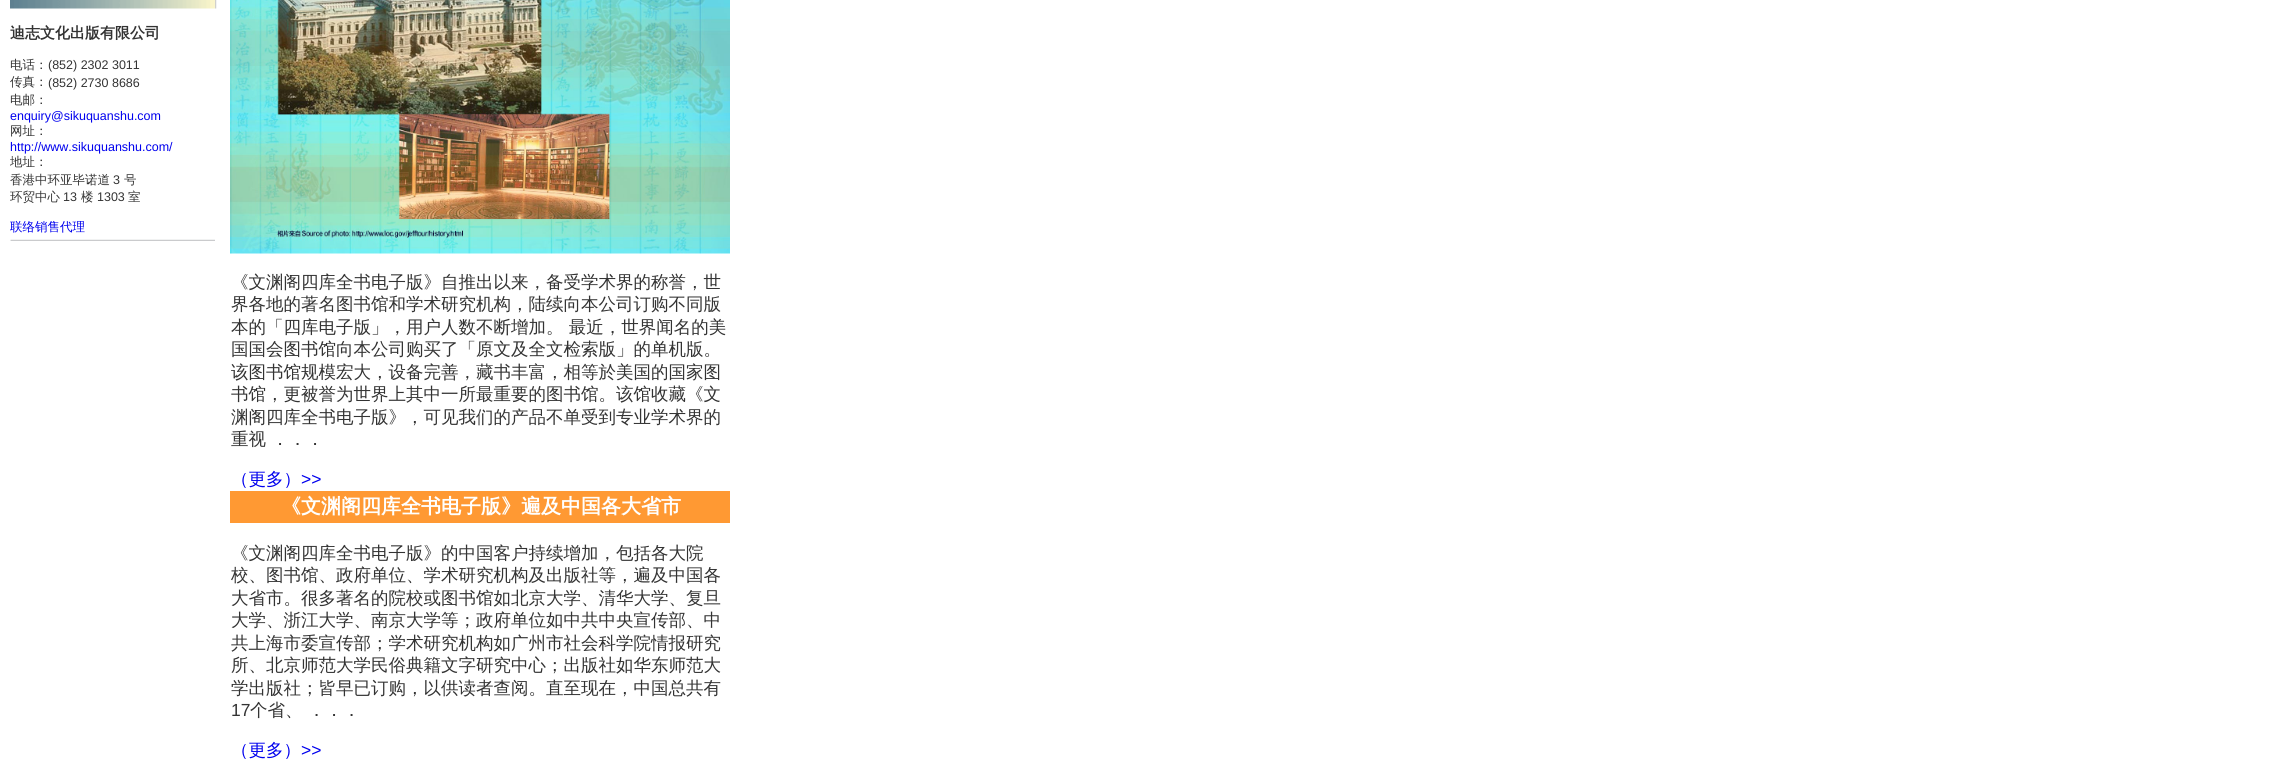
import math
import cairo



def draw_image(context, path, x, y, w, h):
    context.save()
    context.set_source_surface(cairo.ImageSurface.create_from_png(path), x, y)
    context.rectangle(x, y, w, h)
    context.fill()
    context.restore()


def draw(context):
    context.set_source_rgb(1, 1, 1)
    context.paint()
    draw_image(context, "images/1.png", 10, 0, 207, 9)
    draw_image(context, "images/2.png", 10, 239, 205, 2)
    draw_image(context, "images/3.png", 230, 0, 500, 254)
    context.set_source_rgb(1, 153 / 255, 51 / 255)
    context.rectangle(230, 491, 500, 32)
    context.fill()
    context.select_font_face("WenQuanYi Zen Hei", cairo.FontSlant.NORMAL, cairo.FontWeight.BOLD)
    context.set_font_size(15)
    context.set_source_rgb(51 / 255, 51 / 255, 51 / 255)
    context.move_to(10, 38)
    context.show_text("迪志文化出版有限公司")
    context.select_font_face("WenQuanYi Zen Hei Medium")
    context.set_font_size(12.5)
    context.move_to(10, 69)
    context.show_text("电话：")
    context.select_font_face("Liberation Sans")
    context.move_to(48, 69)
    context.show_text("(852) 2302 3011")
    context.select_font_face("WenQuanYi Zen Hei Medium")
    context.move_to(10, 86)
    context.show_text("传真：")
    context.select_font_face("Liberation Sans")
    context.move_to(48, 87)
    context.show_text("(852) 2730 8686")
    context.select_font_face("WenQuanYi Zen Hei Medium")
    context.move_to(10, 104)
    context.show_text("电邮：")
    context.select_font_face("Liberation Sans")
    context.set_source_rgb(0, 0, 238 / 255)
    context.move_to(10, 120)
    context.show_text("enquiry@sikuquanshu.com")
    context.select_font_face("WenQuanYi Zen Hei Medium")
    context.set_source_rgb(51 / 255, 51 / 255, 51 / 255)
    context.move_to(10, 135)
    context.show_text("网址：")
    context.select_font_face("Liberation Sans")
    context.set_source_rgb(0, 0, 238 / 255)
    context.move_to(10, 151)
    context.show_text("http://www.sikuquanshu.com/")
    context.select_font_face("WenQuanYi Zen Hei Medium")
    context.set_source_rgb(51 / 255, 51 / 255, 51 / 255)
    context.move_to(10, 166)
    context.show_text("地址：")
    context.move_to(10, 184)
    context.show_text("香港中环亚毕诺道")
    context.select_font_face("Liberation Sans")
    context.move_to(113, 184)
    context.show_text("3")
    context.select_font_face("WenQuanYi Zen Hei Medium")
    context.move_to(124, 184)
    context.show_text("号")
    context.move_to(10, 201)
    context.show_text("环贸中心")
    context.select_font_face("Liberation Sans")
    context.move_to(63, 201)
    context.show_text("13")
    context.select_font_face("WenQuanYi Zen Hei Medium")
    context.move_to(81, 201)
    context.show_text("楼")
    context.select_font_face("Liberation Sans")
    context.move_to(97, 201)
    context.show_text("1303")
    context.select_font_face("WenQuanYi Zen Hei Medium")
    context.move_to(128, 201)
    context.show_text("室")
    context.set_source_rgb(0, 0, 238 / 255)
    context.move_to(10, 231)
    context.show_text("联络销售代理")
    context.set_font_size(17.5)
    context.set_source_rgb(51 / 255, 51 / 255, 51 / 255)
    context.move_to(231, 288)
    context.show_text("《文渊阁四库全书电子版》自推出以来，备受学术界的称誉，世")
    context.move_to(231, 310)
    context.show_text("界各地的著名图书馆和学术研究机构，陆续向本公司订购不同版")
    context.move_to(231, 333)
    context.show_text("本的「四库电子版」，用户人数不断增加。 最近，世界闻名的美")
    context.move_to(231, 355)
    context.show_text("国国会图书馆向本公司购买了「原文及全文检索版」的单机版。")
    context.move_to(231, 378)
    context.show_text("该图书馆规模宏大，设备完善，藏书丰富，相等於美国的国家图")
    context.move_to(231, 400)
    context.show_text("书馆，更被誉为世界上其中一所最重要的图书馆。该馆收藏《文")
    context.move_to(231, 423)
    context.show_text("渊阁四库全书电子版》，可见我们的产品不单受到专业学术界的")
    context.move_to(231, 445)
    context.show_text("重视 ．．．")
    context.set_source_rgb(0, 0, 238 / 255)
    context.move_to(231, 485)
    context.show_text("（更多）")
    context.select_font_face("Liberation Sans")
    context.move_to(301, 485)
    context.show_text(">>")
    context.select_font_face("WenQuanYi Zen Hei", cairo.FontSlant.NORMAL, cairo.FontWeight.BOLD)
    context.set_font_size(20)
    context.set_source_rgb(1, 1, 1)
    context.move_to(281, 513)
    context.show_text("《文渊阁四库全书电子版》遍及中国各大省市")
    context.select_font_face("WenQuanYi Zen Hei Medium")
    context.set_font_size(17.5)
    context.set_source_rgb(51 / 255, 51 / 255, 51 / 255)
    context.move_to(231, 559)
    context.show_text("《文渊阁四库全书电子版》的中国客户持续增加，包括各大院")
    context.move_to(231, 581)
    context.show_text("校、图书馆、政府单位、学术研究机构及出版社等，遍及中国各")
    context.move_to(231, 604)
    context.show_text("大省市。很多著名的院校或图书馆如北京大学、清华大学、复旦")
    context.move_to(231, 626)
    context.show_text("大学、浙江大学、南京大学等；政府单位如中共中央宣传部、中")
    context.move_to(231, 649)
    context.show_text("共上海市委宣传部；学术研究机构如广州市社会科学院情报研究")
    context.move_to(231, 671)
    context.show_text("所、北京师范大学民俗典籍文字研究中心；出版社如华东师范大")
    context.move_to(231, 694)
    context.show_text("学出版社；皆早已订购，以供读者查阅。直至现在，中国总共有")
    context.select_font_face("Liberation Sans")
    context.move_to(231, 716)
    context.show_text("17")
    context.select_font_face("WenQuanYi Zen Hei Medium")
    context.move_to(250, 716)
    context.show_text("个省、 ．．．")
    context.set_source_rgb(0, 0, 238 / 255)
    context.move_to(231, 756)
    context.show_text("（更多）")
    context.select_font_face("Liberation Sans")
    context.move_to(301, 756)
    context.show_text(">>")


surface = cairo.ImageSurface(cairo.Format.RGB24, 2276, 769)
context = cairo.Context(surface)
options = cairo.FontOptions()
options.set_hint_metrics(cairo.HintMetrics.OFF)
options.set_hint_style(cairo.HintStyle.NONE)
context.set_font_options(options)
context.set_miter_limit(4)
draw(context)
surface.write_to_png("out.png")
